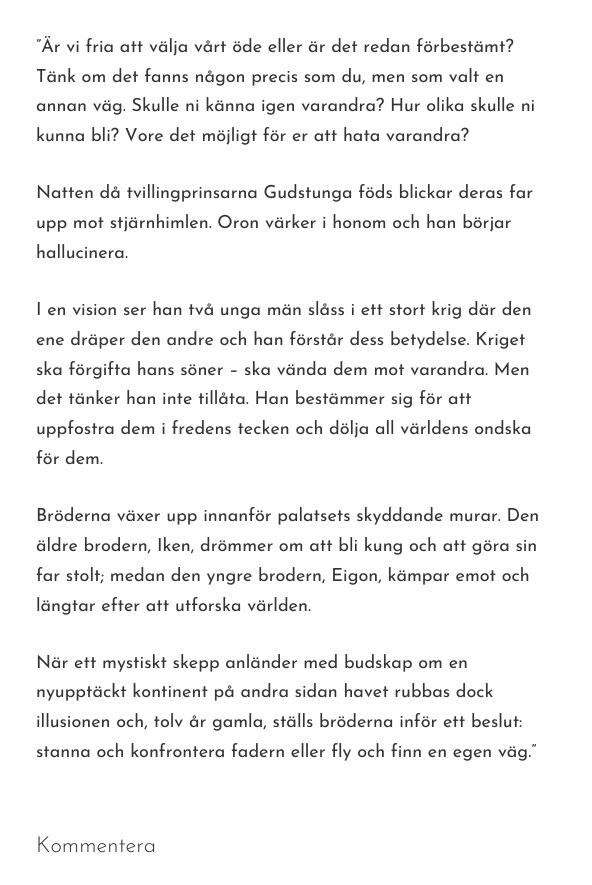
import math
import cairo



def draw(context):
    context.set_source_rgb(1, 1, 1)
    context.paint()
    context.select_font_face("Josefin Sans")
    context.set_font_size(18)
    context.set_source_rgb(51 / 255, 51 / 255, 51 / 255)
    context.move_to(36, 52)
    context.show_text("”Är vi fria att välja vårt öde eller är det redan förbestämt?")
    context.move_to(36, 82)
    context.show_text("Tänk om det fanns någon precis som du, men som valt en")
    context.move_to(36, 111)
    context.show_text("annan väg. Skulle ni känna igen varandra? Hur olika skulle ni")
    context.move_to(36, 141)
    context.show_text("kunna bli? Vore det möjligt för er att hata varandra?")
    context.move_to(36, 198)
    context.show_text("Natten då tvillingprinsarna Gudstunga föds blickar deras far")
    context.move_to(36, 228)
    context.show_text("upp mot stjärnhimlen. Oron värker i honom och han börjar")
    context.move_to(36, 258)
    context.show_text("hallucinera.")
    context.move_to(36, 315)
    context.show_text("I en vision ser han två unga män slåss i ett stort krig där den")
    context.move_to(36, 345)
    context.show_text("ene dräper den andre och han förstår dess betydelse. Kriget")
    context.move_to(36, 375)
    context.show_text("ska förgifta hans söner – ska vända dem mot varandra. Men")
    context.move_to(36, 404)
    context.show_text("det tänker han inte tillåta. Han bestämmer sig för att")
    context.move_to(36, 434)
    context.show_text("uppfostra dem i fredens tecken och dölja all världens ondska")
    context.move_to(36, 464)
    context.show_text("för dem.")
    context.move_to(36, 521)
    context.show_text("Bröderna växer upp innanför palatsets skyddande murar. Den")
    context.move_to(36, 551)
    context.show_text("äldre brodern, Iken, drömmer om att bli kung och att göra sin")
    context.move_to(36, 581)
    context.show_text("far stolt; medan den yngre brodern, Eigon, kämpar emot och")
    context.move_to(36, 611)
    context.show_text("längtar efter att utforska världen.")
    context.move_to(36, 668)
    context.show_text("När ett mystiskt skepp anländer med budskap om en")
    context.move_to(36, 697)
    context.show_text("nyupptäckt kontinent på andra sidan havet rubbas dock")
    context.move_to(36, 727)
    context.show_text("illusionen och, tolv år gamla, ställs bröderna inför ett beslut:")
    context.move_to(36, 757)
    context.show_text("stanna och konfrontera fadern eller fly och finn en egen väg.”")
    context.select_font_face("Josefin Sans Light")
    context.set_font_size(22)
    context.move_to(36, 852)
    context.show_text("Kommentera")


surface = cairo.ImageSurface(cairo.Format.RGB24, 592, 885)
context = cairo.Context(surface)
options = cairo.FontOptions()
options.set_hint_metrics(cairo.HintMetrics.OFF)
options.set_hint_style(cairo.HintStyle.NONE)
context.set_font_options(options)
context.set_miter_limit(4)
draw(context)
surface.write_to_png("out.png")
